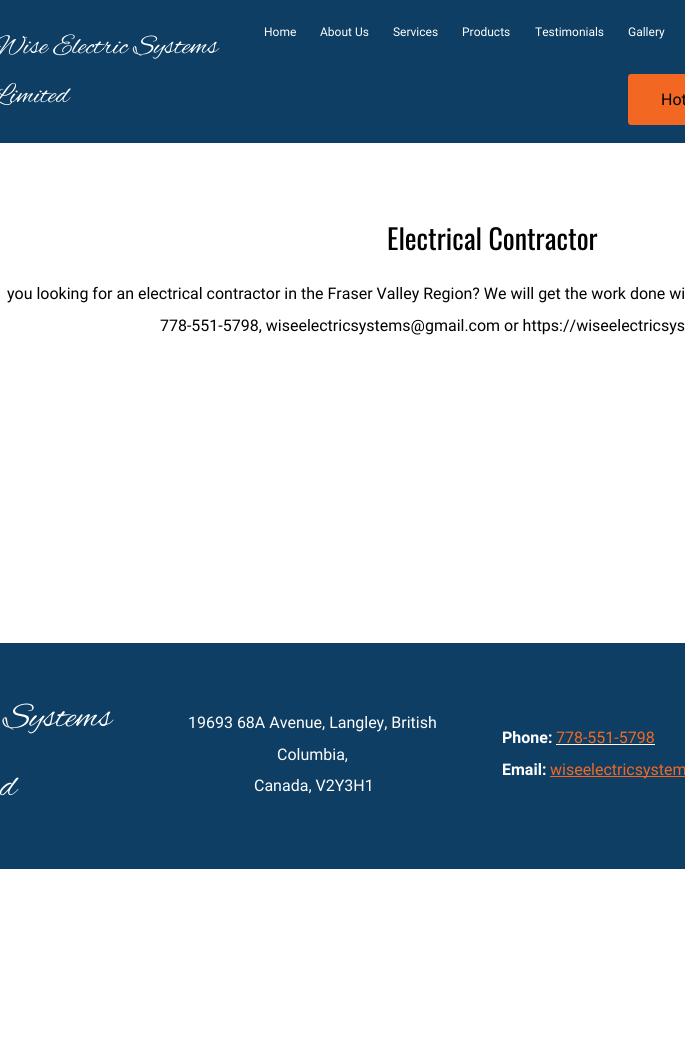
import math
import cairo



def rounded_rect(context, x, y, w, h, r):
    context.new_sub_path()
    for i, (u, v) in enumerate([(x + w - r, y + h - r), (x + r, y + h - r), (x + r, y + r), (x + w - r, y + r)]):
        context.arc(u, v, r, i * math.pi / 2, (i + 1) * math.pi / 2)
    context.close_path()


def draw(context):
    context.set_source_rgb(1, 1, 1)
    context.paint()
    context.set_source_rgb(14 / 255, 62 / 255, 99 / 255)
    context.rectangle(0, 0, 685, 143)
    context.fill()
    context.set_source_rgb(242 / 255, 103 / 255, 34 / 255)
    rounded_rect(context, 628, 74, 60, 51, 3)
    context.fill()
    context.set_source_rgb(14 / 255, 62 / 255, 99 / 255)
    context.rectangle(0, 643, 685, 226)
    context.fill()
    context.set_source_rgb(1, 1, 1)
    context.rectangle(556, 744, 99, 1)
    context.fill()
    context.set_source_rgb(242 / 255, 103 / 255, 34 / 255)
    context.rectangle(550, 776, 135, 1)
    context.fill()
    context.select_font_face("Roboto")
    context.set_font_size(12)
    context.set_source_rgb(1, 1, 1)
    context.move_to(264, 36)
    context.show_text("Home")
    context.move_to(320, 36)
    context.show_text("About Us")
    context.move_to(393, 36)
    context.show_text("Services")
    context.move_to(462, 36)
    context.show_text("Products")
    context.move_to(535, 36)
    context.show_text("Testimonials")
    context.move_to(628, 36)
    context.show_text("Gallery")
    context.select_font_face("Alex Brush")
    context.set_font_size(28)
    context.move_to(-8, 53)
    context.show_text("Wise Electric Systems")
    context.move_to(-8, 102)
    context.show_text("Limited")
    context.select_font_face("Roboto")
    context.set_font_size(16)
    context.set_source_rgb(0, 0, 0)
    context.move_to(661, 105)
    context.show_text("Hot")
    context.select_font_face("Oswald")
    context.set_font_size(28)
    context.move_to(387, 250)
    context.show_text("Electrical Contractor")
    context.select_font_face("Roboto")
    context.set_font_size(16)
    context.move_to(7, 299)
    context.show_text("you looking for an electrical contractor in the Fraser Valley Region? We will get the work done wi")
    context.move_to(160, 331)
    context.show_text("778-551-5798, wiseelectricsystems@gmail.com or https://wiseelectricsys")
    context.select_font_face("Alex Brush")
    context.set_font_size(36)
    context.set_source_rgb(1, 1, 1)
    context.move_to(3, 726)
    context.show_text("Systems")
    context.move_to(0, 795)
    context.show_text("d")
    context.select_font_face("Roboto")
    context.set_font_size(16)
    context.move_to(188, 728)
    context.show_text("19693 68A Avenue, Langley, British")
    context.move_to(277, 760)
    context.show_text("Columbia,")
    context.move_to(254, 791)
    context.show_text("Canada, V2Y3H1")
    context.select_font_face("Roboto", cairo.FontSlant.NORMAL, cairo.FontWeight.BOLD)
    context.move_to(502, 743)
    context.show_text("Phone:")
    context.select_font_face("Roboto")
    context.set_source_rgb(242 / 255, 103 / 255, 34 / 255)
    context.move_to(556, 743)
    context.show_text("778-551-5798")
    context.select_font_face("Roboto", cairo.FontSlant.NORMAL, cairo.FontWeight.BOLD)
    context.set_source_rgb(1, 1, 1)
    context.move_to(502, 775)
    context.show_text("Email:")
    context.select_font_face("Roboto")
    context.set_source_rgb(242 / 255, 103 / 255, 34 / 255)
    context.move_to(550, 775)
    context.show_text("wiseelectricsystem")


surface = cairo.ImageSurface(cairo.Format.RGB24, 685, 1043)
context = cairo.Context(surface)
options = cairo.FontOptions()
options.set_hint_metrics(cairo.HintMetrics.OFF)
options.set_hint_style(cairo.HintStyle.NONE)
context.set_font_options(options)
context.set_miter_limit(4)
draw(context)
surface.write_to_png("out.png")
